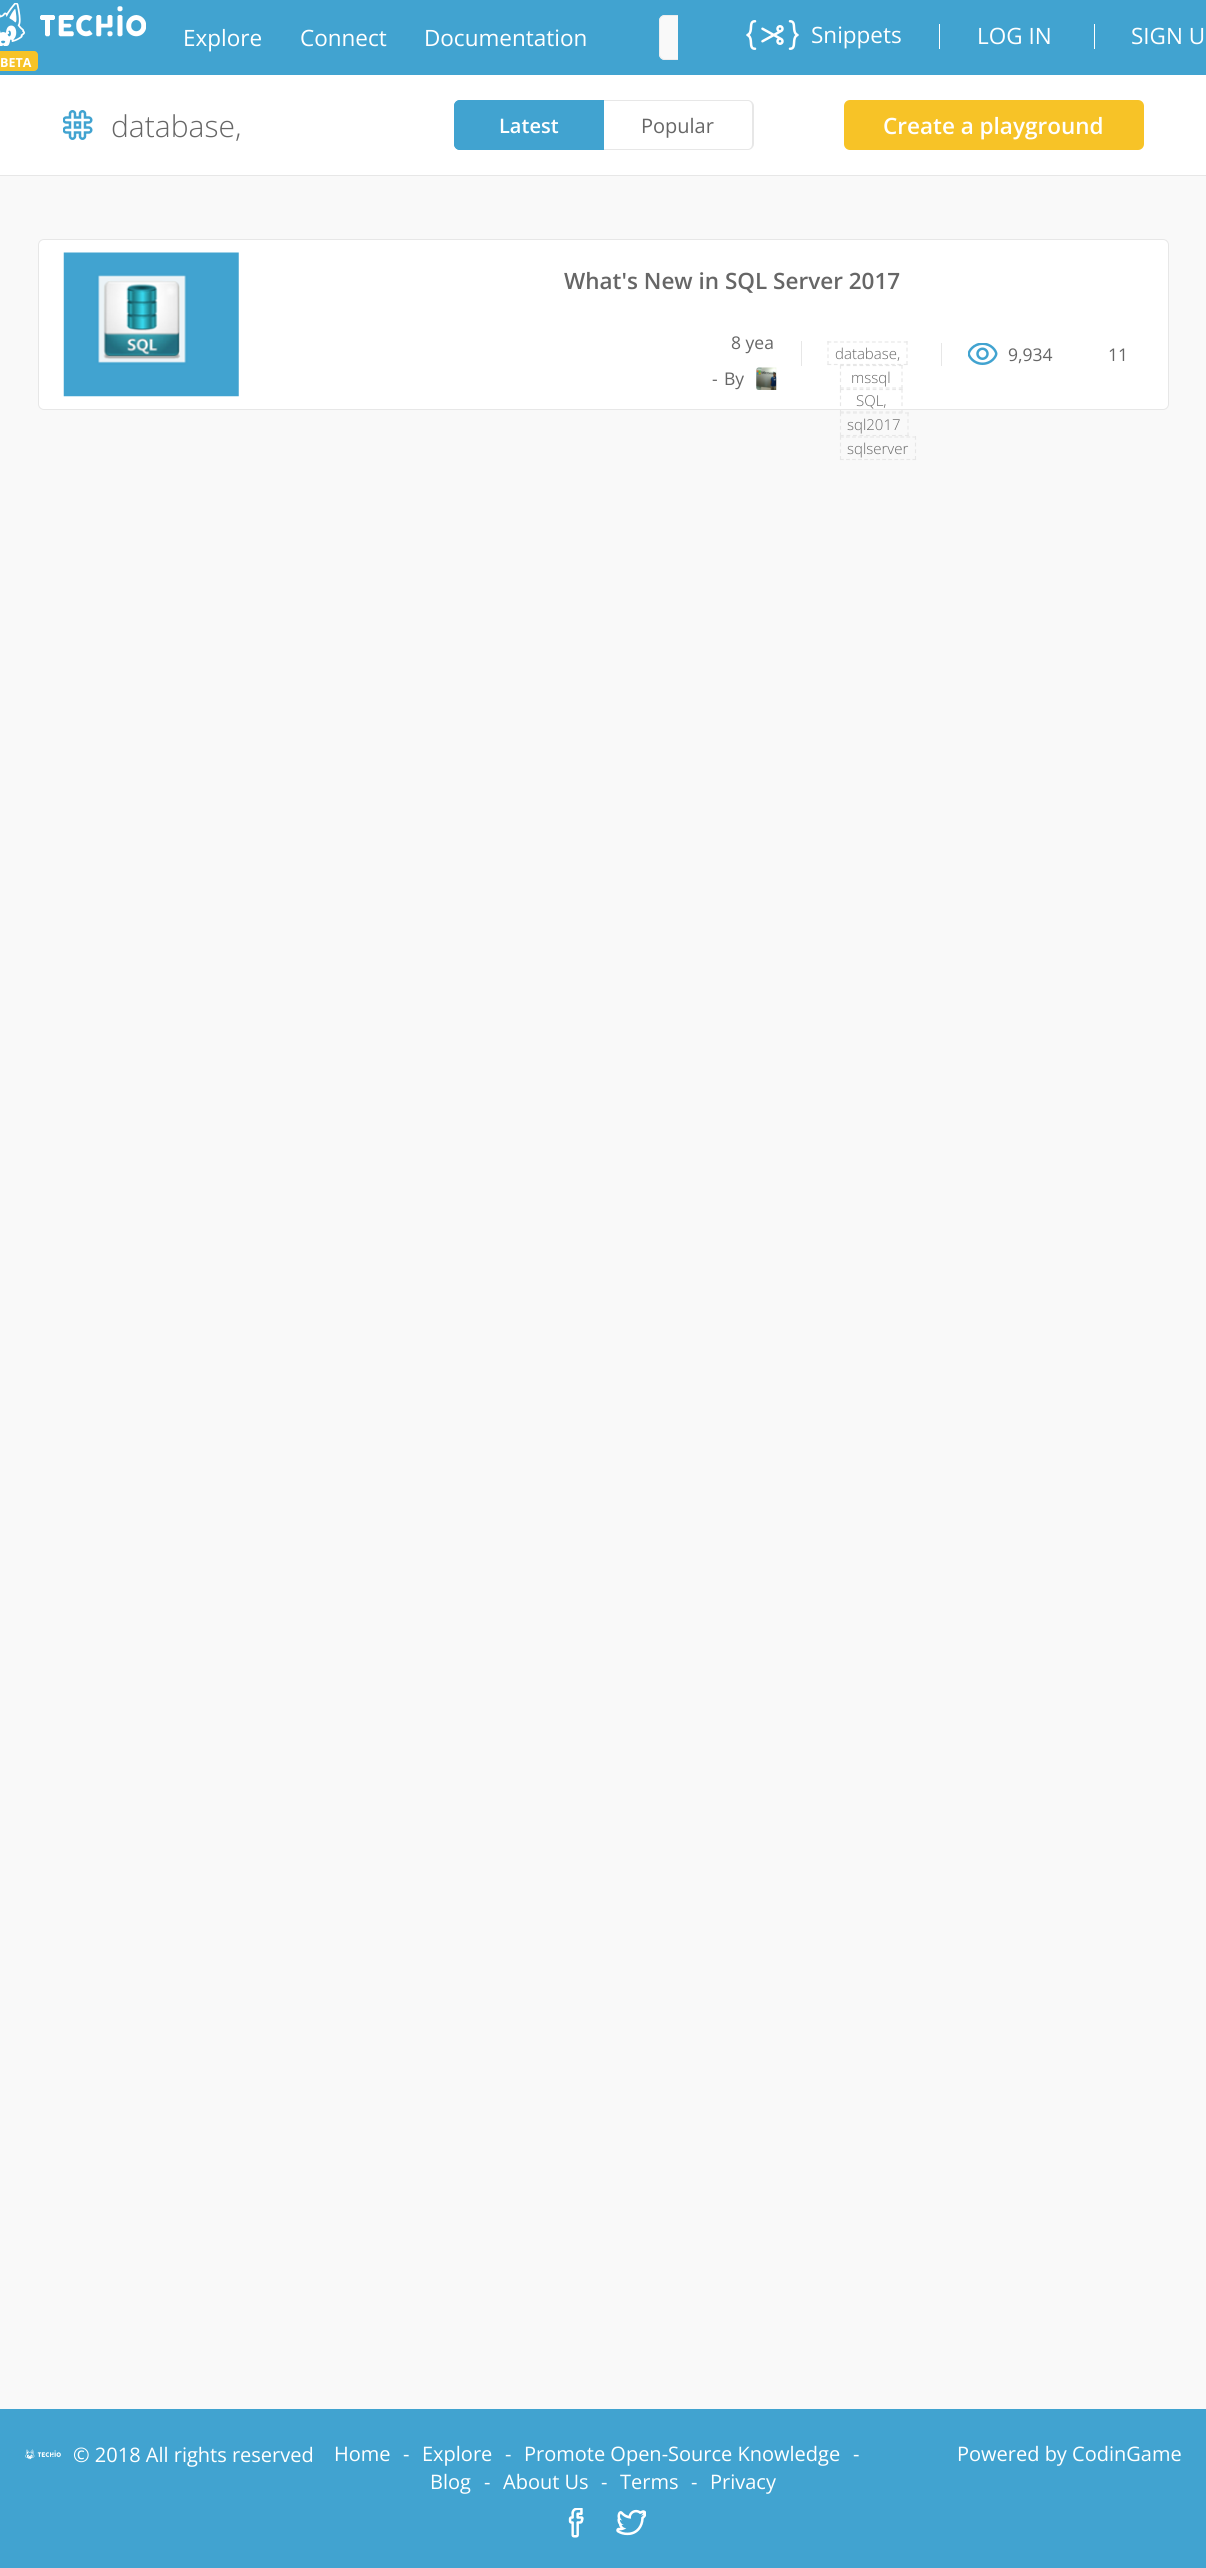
import math
import cairo



def rounded_rect(context, x, y, w, h, r):
    context.new_sub_path()
    for i, (u, v) in enumerate([(x + w - r, y + h - r), (x + r, y + h - r), (x + r, y + r), (x + w - r, y + r)]):
        context.arc(u, v, r, i * math.pi / 2, (i + 1) * math.pi / 2)
    context.close_path()


def draw_image(context, path, x, y, w, h):
    context.save()
    context.set_source_surface(cairo.ImageSurface.create_from_png(path), x, y)
    context.rectangle(x, y, w, h)
    context.fill()
    context.restore()


def draw(context):
    context.set_source_rgb(249 / 255, 249 / 255, 249 / 255)
    context.paint()
    context.set_source_rgb(65 / 255, 163 / 255, 208 / 255)
    context.rectangle(0, 0, 1206, 75)
    context.fill()
    context.set_source_rgb(249 / 255, 249 / 255, 249 / 255)
    context.new_path()
    context.move_to(665, 15)
    context.line_to(678, 15)
    context.line_to(678, 60)
    context.line_to(665, 60)
    context.curve_to(661.5, 60, 659, 57.5, 659, 54)
    context.line_to(659, 21)
    context.curve_to(659, 17.5, 661.5, 15, 665, 15)
    context.close_path()
    context.fill()
    context.save()
    context.rectangle(640, 0, 38, 75)
    context.clip()
    rounded_rect(context, 659.5, 15.5, 60, 44, 5.5)
    context.set_source_rgb(237 / 255, 237 / 255, 237 / 255)
    context.set_line_width(1)
    context.stroke()
    context.restore()
    draw_image(context, "images/1.png", 746, 20, 53, 30)
    context.set_source_rgb(1, 1, 1)
    context.rectangle(939, 24, 1, 25)
    context.fill()
    context.rectangle(1094, 24, 1, 25)
    context.fill()
    draw_image(context, "images/2.png", 0, 3, 146, 43)
    context.set_source_rgb(247 / 255, 195 / 255, 39 / 255)
    rounded_rect(context, -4, 51, 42, 20, 4)
    context.fill()
    context.set_source_rgb(1, 1, 1)
    context.rectangle(0, 75, 1206, 100)
    context.fill()
    context.set_source_rgb(231 / 255, 231 / 255, 231 / 255)
    context.rectangle(0, 175, 1206, 1)
    context.fill()
    draw_image(context, "images/3.png", 63, 110, 30, 30)
    context.set_source_rgb(65 / 255, 163 / 255, 208 / 255)
    context.new_path()
    context.move_to(460, 100)
    context.line_to(604, 100)
    context.line_to(604, 150)
    context.line_to(460, 150)
    context.curve_to(456.5, 150, 454, 147.5, 454, 144)
    context.line_to(454, 106)
    context.curve_to(454, 102.5, 456.5, 100, 460, 100)
    context.close_path()
    context.fill()
    context.set_fill_rule(cairo.FillRule.EVEN_ODD)
    context.new_path()
    context.move_to(460, 100)
    context.line_to(604, 100)
    context.line_to(604, 150)
    context.line_to(460, 150)
    context.curve_to(457, 150, 454, 147, 454, 144)
    context.line_to(454, 106)
    context.curve_to(454, 103, 457, 100, 460, 100)
    context.close_path()
    context.move_to(460, 101)
    context.line_to(604, 101)
    context.line_to(604, 149)
    context.line_to(460, 149)
    context.curve_to(457, 149, 455, 147, 455, 144)
    context.line_to(455, 106)
    context.curve_to(455, 103, 457, 101, 460, 101)
    context.close_path()
    context.fill()
    context.set_source_rgb(231 / 255, 231 / 255, 231 / 255)
    context.new_path()
    context.move_to(604, 100)
    context.line_to(748, 100)
    context.curve_to(751, 100, 754, 103, 754, 106)
    context.line_to(754, 144)
    context.curve_to(754, 147, 751, 150, 748, 150)
    context.line_to(604, 150)
    context.close_path()
    context.move_to(604, 101)
    context.line_to(748, 101)
    context.curve_to(750, 101, 752, 103, 752, 106)
    context.line_to(752, 144)
    context.curve_to(752, 147, 750, 149, 748, 149)
    context.line_to(604, 149)
    context.close_path()
    context.fill()
    context.set_source_rgb(247 / 255, 195 / 255, 39 / 255)
    rounded_rect(context, 844, 100, 300, 50, 6)
    context.fill()
    context.set_source_rgb(1, 1, 1)
    rounded_rect(context, 38.5, 239.5, 1130, 170, 5.5)
    context.fill_preserve()
    context.set_source_rgb(231 / 255, 231 / 255, 231 / 255)
    context.set_line_width(1)
    context.stroke()
    draw_image(context, "images/4.png", 63, 252, 176, 145)
    draw_image(context, "images/5.png", 756, 367, 21, 23)
    context.rectangle(801, 341, 1, 25)
    context.fill()
    context.new_path()
    context.move_to(827.5, 342)
    context.line_to(907.5, 342)
    context.set_line_width(1.2)
    context.set_dash([3.75, 2.6])
    context.stroke()
    context.new_path()
    context.move_to(907, 341)
    context.line_to(907, 365)
    context.set_dash([3.75, 2.91])
    context.stroke()
    context.new_path()
    context.move_to(827.5, 364.5)
    context.line_to(907.5, 364.5)
    context.set_dash([3.75, 2.6])
    context.stroke()
    context.new_path()
    context.move_to(828, 341)
    context.line_to(828, 365)
    context.set_dash([3.75, 2.91])
    context.stroke()
    context.new_path()
    context.move_to(840, 365.5)
    context.line_to(902.5, 365.5)
    context.set_dash([3.75, 2.78])
    context.stroke()
    context.new_path()
    context.move_to(902, 365)
    context.line_to(902, 389)
    context.set_dash([3.75, 2.91])
    context.stroke()
    context.new_path()
    context.move_to(840, 388)
    context.line_to(902.5, 388)
    context.set_dash([3.75, 2.78])
    context.stroke()
    context.new_path()
    context.move_to(840.5, 365)
    context.line_to(840.5, 389)
    context.set_dash([3.75, 2.91])
    context.stroke()
    context.new_path()
    context.move_to(840, 389.5)
    context.line_to(902.5, 389.5)
    context.set_dash([3.75, 2.78])
    context.stroke()
    context.new_path()
    context.move_to(902, 389)
    context.line_to(902, 412.5)
    context.set_dash([3.75, 2.91])
    context.stroke()
    context.new_path()
    context.move_to(840, 412)
    context.line_to(902.5, 412)
    context.set_dash([3.75, 2.78])
    context.stroke()
    context.new_path()
    context.move_to(840.5, 389)
    context.line_to(840.5, 412.5)
    context.set_dash([3.75, 2.91])
    context.stroke()
    context.new_path()
    context.move_to(840, 413)
    context.line_to(909, 413)
    context.set_dash([3.75, 2.75])
    context.stroke()
    context.new_path()
    context.move_to(908, 412.5)
    context.line_to(908, 436)
    context.set_dash([3.75, 2.91])
    context.stroke()
    context.new_path()
    context.move_to(840, 435.5)
    context.line_to(909, 435.5)
    context.set_dash([3.75, 2.75])
    context.stroke()
    context.new_path()
    context.move_to(840.5, 412.5)
    context.line_to(840.5, 436)
    context.set_dash([3.75, 2.91])
    context.stroke()
    context.new_path()
    context.move_to(840, 437)
    context.line_to(916, 437)
    context.set_dash([3.75, 2.29])
    context.stroke()
    context.new_path()
    context.move_to(915.5, 436)
    context.line_to(915.5, 460)
    context.set_dash([3.75, 2.91])
    context.stroke()
    context.new_path()
    context.move_to(840, 459.5)
    context.line_to(916, 459.5)
    context.set_dash([3.75, 2.29])
    context.stroke()
    context.new_path()
    context.move_to(840.5, 436)
    context.line_to(840.5, 460)
    context.set_dash([3.75, 2.91])
    context.stroke()
    context.rectangle(941, 343, 1, 23)
    context.fill()
    draw_image(context, "images/6.png", 968, 343, 30, 22)
    context.set_source_rgb(65 / 255, 163 / 255, 208 / 255)
    context.rectangle(0, 2409, 1206, 159)
    context.fill()
    draw_image(context, "images/7.png", 25, 2449, 36, 11)
    draw_image(context, "images/8.png", 568, 2508, 16, 30)
    draw_image(context, "images/9.png", 616, 2509, 30, 27)
    context.select_font_face("Open Sans")
    context.set_font_size(22.5)
    context.set_source_rgb(1, 1, 1)
    context.move_to(183, 46)
    context.show_text("Explore")
    context.move_to(300, 46)
    context.show_text("Connect")
    context.move_to(424, 46)
    context.show_text("Documentation")
    context.move_to(811, 43)
    context.show_text("Snippets")
    context.move_to(977, 44)
    context.show_text("LOG IN")
    context.move_to(1131, 44)
    context.show_text("SIGN U")
    context.select_font_face("Open Sans", cairo.FontSlant.NORMAL, cairo.FontWeight.BOLD)
    context.set_font_size(12.5)
    context.move_to(0, 67)
    context.show_text("BETA")
    context.select_font_face("Open Sans Light")
    context.set_font_size(30)
    context.set_source_rgb(102 / 255, 102 / 255, 102 / 255)
    context.move_to(111, 137)
    context.show_text("database,")
    context.select_font_face("Open Sans SemiBold")
    context.set_font_size(20)
    context.set_source_rgb(1, 1, 1)
    context.move_to(499, 133)
    context.show_text("Latest")
    context.select_font_face("Open Sans")
    context.set_source_rgb(102 / 255, 102 / 255, 102 / 255)
    context.move_to(641, 133)
    context.show_text("Popular")
    context.select_font_face("Open Sans SemiBold")
    context.set_font_size(22.5)
    context.set_source_rgb(1, 1, 1)
    context.move_to(883, 134)
    context.show_text("Create a playground")
    context.set_source_rgb(102 / 255, 102 / 255, 102 / 255)
    context.move_to(564, 289)
    context.show_text("What's New in SQL Server 2017")
    context.select_font_face("Open Sans")
    context.set_font_size(17.5)
    context.move_to(731, 349)
    context.show_text("8 yea")
    context.move_to(712, 385)
    context.show_text("-")
    context.move_to(724, 385)
    context.show_text("By")
    context.select_font_face("Open Sans Light")
    context.set_font_size(15)
    context.move_to(835, 359)
    context.show_text("database,")
    context.move_to(851, 383)
    context.show_text("mssql")
    context.move_to(856, 406)
    context.show_text("SQL,")
    context.move_to(847, 430)
    context.show_text("sql2017")
    context.move_to(847, 454)
    context.show_text("sqlserver")
    context.select_font_face("Open Sans")
    context.set_font_size(17.5)
    context.move_to(1008, 361)
    context.show_text("9,934")
    context.move_to(1108, 361)
    context.show_text("11")
    context.set_font_size(20)
    context.set_source_rgb(1, 1, 1)
    context.move_to(73, 2462)
    context.show_text("© 2018 All rights reserved")
    context.move_to(334, 2461)
    context.show_text("Home")
    context.move_to(403, 2461)
    context.show_text("-")
    context.move_to(422, 2461)
    context.show_text("Explore")
    context.move_to(505, 2461)
    context.show_text("-")
    context.move_to(524, 2461)
    context.show_text("Promote Open-Source Knowledge")
    context.move_to(853, 2461)
    context.show_text("-")
    context.move_to(430, 2489)
    context.show_text("Blog")
    context.move_to(484, 2489)
    context.show_text("-")
    context.move_to(503, 2489)
    context.show_text("About Us")
    context.move_to(601, 2489)
    context.show_text("-")
    context.move_to(620, 2489)
    context.show_text("Terms")
    context.move_to(691, 2489)
    context.show_text("-")
    context.move_to(710, 2489)
    context.show_text("Privacy")
    context.move_to(957, 2461)
    context.show_text("Powered by CodinGame")


surface = cairo.ImageSurface(cairo.Format.RGB24, 1206, 2568)
context = cairo.Context(surface)
options = cairo.FontOptions()
options.set_hint_metrics(cairo.HintMetrics.OFF)
options.set_hint_style(cairo.HintStyle.NONE)
context.set_font_options(options)
context.set_miter_limit(4)
draw(context)
surface.write_to_png("out.png")
